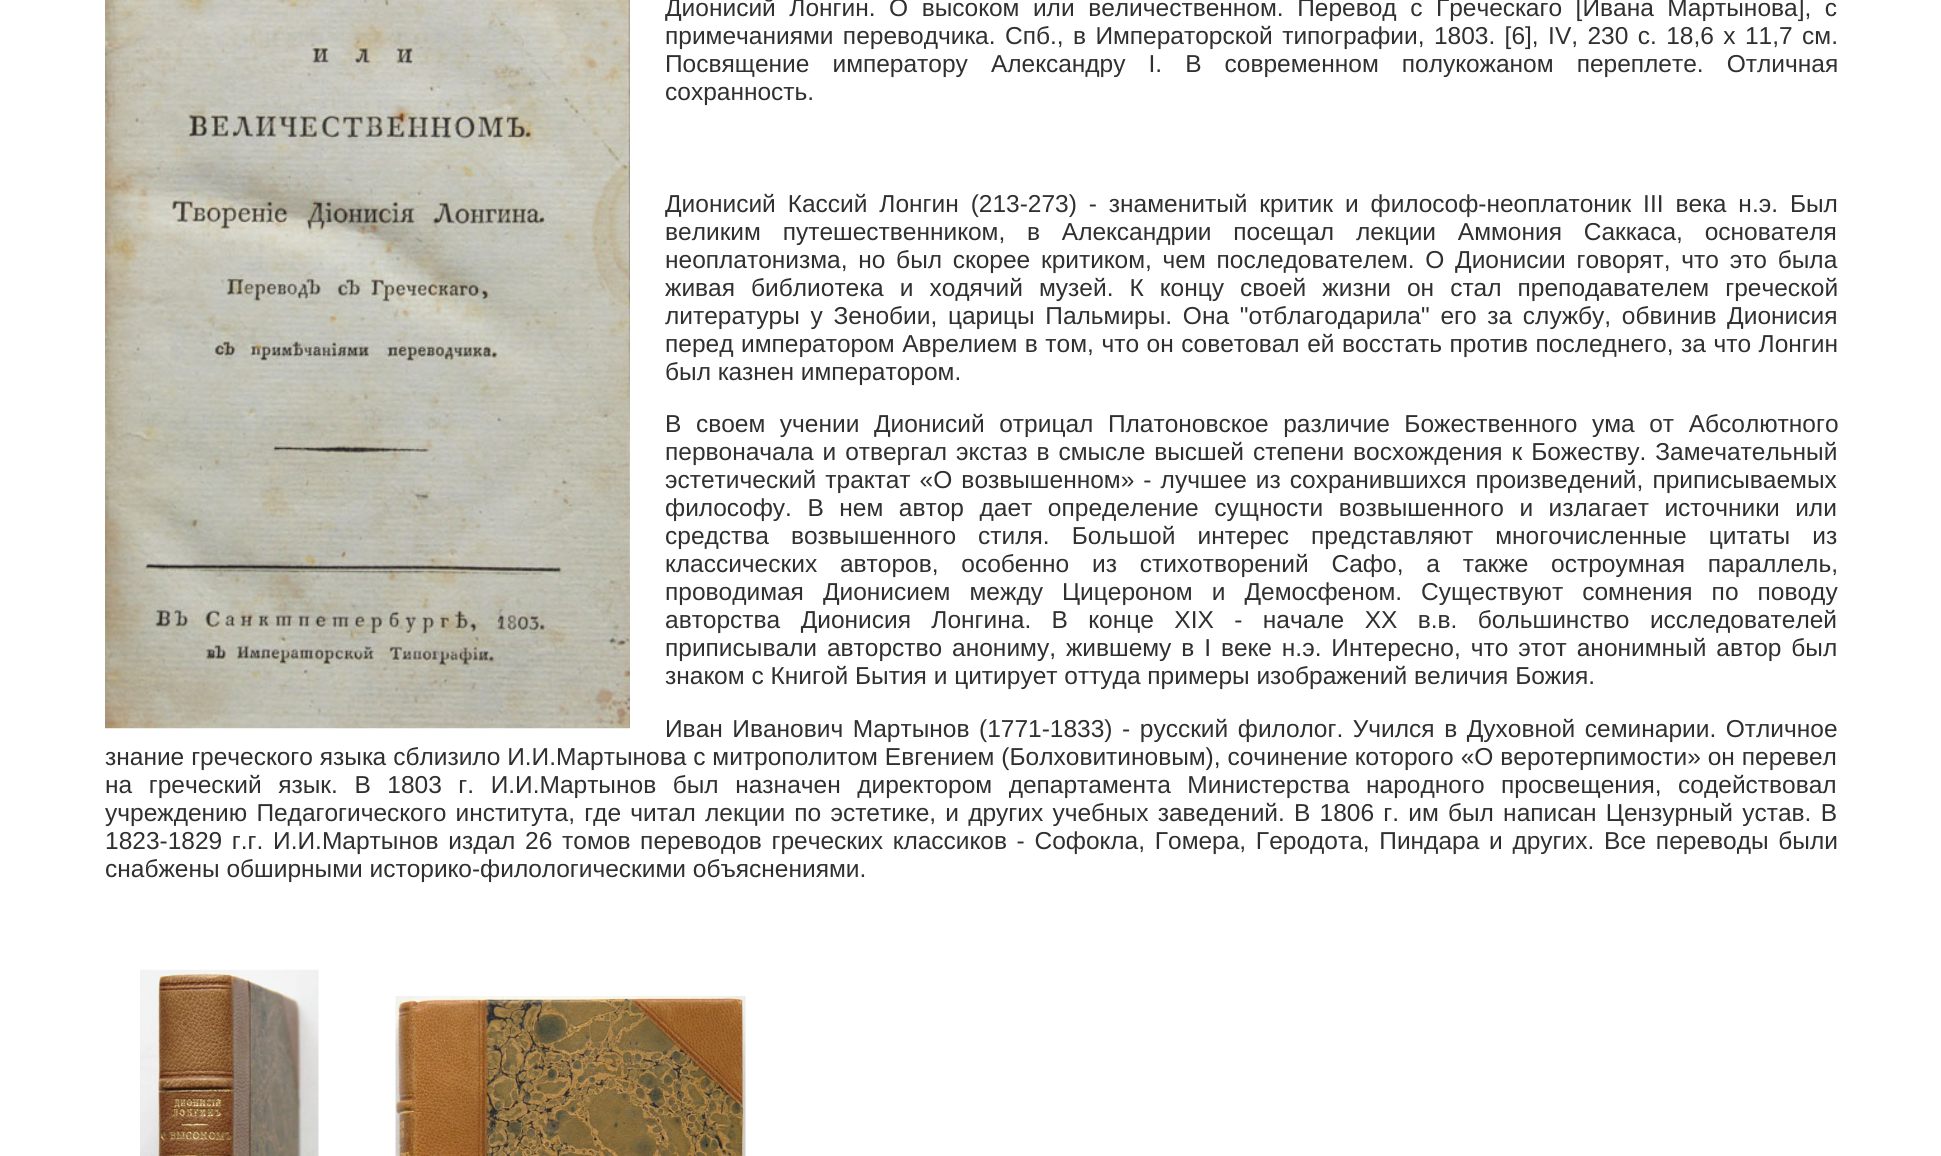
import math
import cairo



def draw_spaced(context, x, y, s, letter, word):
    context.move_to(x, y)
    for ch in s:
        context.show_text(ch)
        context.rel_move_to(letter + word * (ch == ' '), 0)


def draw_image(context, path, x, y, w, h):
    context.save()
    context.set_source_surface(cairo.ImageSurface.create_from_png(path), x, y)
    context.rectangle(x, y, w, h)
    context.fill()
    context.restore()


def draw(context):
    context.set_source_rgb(1, 1, 1)
    context.paint()
    draw_image(context, "images/1.png", 105, 0, 525, 729)
    draw_image(context, "images/2.png", 140, 969, 179, 187)
    draw_image(context, "images/3.png", 395, 996, 351, 160)
    context.select_font_face("Liberation Sans")
    context.set_font_size(24.5)
    context.set_source_rgb(48 / 255, 48 / 255, 48 / 255)
    draw_spaced(context, 665, 16, "Дионисий Лонгин. О высоком или величественном. Перевод с Греческаго [Ивана Мартынова], с", 0, 6.75)
    draw_spaced(context, 665, 44, "примечаниями переводчика. Спб., в Императорской типографии, 1803. [6], IV, 230 с. 18,6 х 11,7 см.", 0, 2.6)
    draw_spaced(context, 665, 72, "Посвящение императору Александру I. В современном полукожаном переплете. Отличная", 0, 16.25)
    context.move_to(665, 100)
    context.show_text("сохранность.")
    draw_spaced(context, 665, 212, "Дионисий Кассий Лонгин (213-273) - знаменитый критик и философ-неоплатоник III века н.э. Был", 0, 5.1)
    draw_spaced(context, 665, 240, "великим путешественником, в Александрии посещал лекции Аммония Саккаса, основателя", 0, 15)
    draw_spaced(context, 665, 268, "неоплатонизма, но был скорее критиком, чем последователем. О Дионисии говорят, что это была", 0, 3.9)
    draw_spaced(context, 665, 296, "живая библиотека и ходячий музей. К концу своей жизни он стал преподавателем греческой", 0, 9.25)
    draw_spaced(context, 665, 324, "литературы у Зенобии, царицы Пальмиры. Она \"отблагодарила\" его за службу, обвинив Дионисия", 0, 3.9)
    draw_spaced(context, 665, 352, "перед императором Аврелием в том, что он советовал ей восстать против последнего, за что Лонгин", 0, 0.75)
    context.move_to(665, 380)
    context.show_text("был казнен императором.")
    draw_spaced(context, 665, 432, "В своем учении Дионисий отрицал Платоновское различие Божественного ума от Абсолютного", 0, 7.75)
    draw_spaced(context, 665, 460, "первоначала и отвергал экстаз в смысле высшей степени восхождения к Божеству. Замечательный", 0, 2.1)
    draw_spaced(context, 665, 488, "эстетический трактат «О возвышенном» - лучшее из сохранившихся произведений, приписываемых", 0, 2.25)
    draw_spaced(context, 665, 516, "философу. В нем автор дает определение сущности возвышенного и излагает источники или", 0, 8.75)
    draw_spaced(context, 665, 544, "средства возвышенного стиля. Большой интерес представляют многочисленные цитаты из", 0, 15.25)
    draw_spaced(context, 665, 572, "классических авторов, особенно из стихотворений Сафо, а также остроумная параллель,", 0, 16)
    draw_spaced(context, 665, 600, "проводимая Дионисием между Цицероном и Демосфеном. Существуют сомнения по поводу", 0, 12.25)
    draw_spaced(context, 665, 628, "авторства Дионисия Лонгина. В конце XIX - начале ХХ в.в. большинство исследователей", 0, 13.6)
    draw_spaced(context, 665, 656, "приписывали авторство анониму, жившему в I веке н.э. Интересно, что этот анонимный автор был", 0, 3.1)
    context.move_to(665, 684)
    context.show_text("знаком с Книгой Бытия и цитирует оттуда примеры изображений величия Божия.")
    draw_spaced(context, 665, 737, "Иван Иванович Мартынов (1771-1833) - русский филолог. Учился в Духовной семинарии. Отличное", 0, 2.75)
    draw_spaced(context, 105, 765, "знание греческого языка сблизило И.И.Мартынова с митрополитом Евгением (Болховитиновым), сочинение которого «О веротерпимости» он перевел", 0, 0.1)
    draw_spaced(context, 105, 793, "на греческий язык. В 1803 г. И.И.Мартынов был назначен директором департамента Министерства народного просвещения, содействовал", 0, 9.75)
    draw_spaced(context, 105, 821, "учреждению Педагогического института, где читал лекции по эстетике, и других учебных заведений. В 1806 г. им был написан Цензурный устав. В", 0, 2.4)
    draw_spaced(context, 105, 849, "1823-1829 г.г. И.И.Мартынов издал 26 томов переводов греческих классиков - Софокла, Гомера, Геродота, Пиндара и других. Все переводы были", 0, 2.9)
    context.move_to(105, 877)
    context.show_text("снабжены обширными историко-филологическими объяснениями.")


surface = cairo.ImageSurface(cairo.Format.RGB24, 1941, 1156)
context = cairo.Context(surface)
options = cairo.FontOptions()
options.set_hint_metrics(cairo.HintMetrics.OFF)
options.set_hint_style(cairo.HintStyle.NONE)
context.set_font_options(options)
context.set_miter_limit(4)
draw(context)
surface.write_to_png("out.png")
